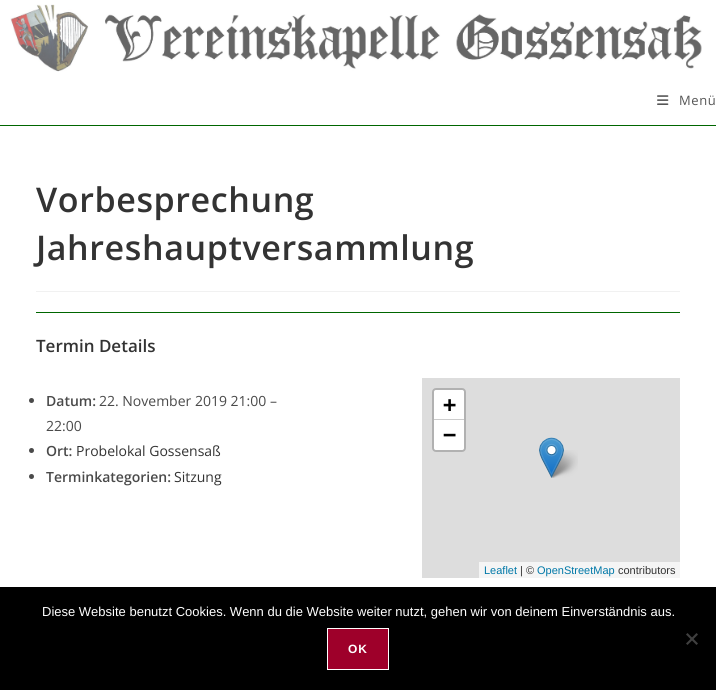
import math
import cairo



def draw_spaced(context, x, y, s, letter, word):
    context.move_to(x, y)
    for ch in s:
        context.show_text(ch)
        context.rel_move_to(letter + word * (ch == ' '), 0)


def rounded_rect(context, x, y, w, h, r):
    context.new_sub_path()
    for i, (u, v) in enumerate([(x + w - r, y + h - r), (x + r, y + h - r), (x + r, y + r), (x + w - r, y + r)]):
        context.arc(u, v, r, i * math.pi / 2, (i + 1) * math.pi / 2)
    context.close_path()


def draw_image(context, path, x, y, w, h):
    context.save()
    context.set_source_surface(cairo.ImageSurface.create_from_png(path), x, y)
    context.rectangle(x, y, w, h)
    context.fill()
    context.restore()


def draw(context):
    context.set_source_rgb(1, 1, 1)
    context.paint()
    context.set_source_rgb(0, 102 / 255, 0)
    context.rectangle(0, 125, 716, 1)
    context.fill()
    draw_image(context, "images/1.png", 10, 4, 692, 68)
    draw_image(context, "images/2.png", 657, 95, 12, 10)
    context.set_source_rgb(241 / 255, 241 / 255, 241 / 255)
    context.rectangle(36, 291, 644, 1)
    context.fill()
    context.set_source_rgb(0, 102 / 255, 0)
    context.rectangle(36, 312, 644, 1)
    context.fill()
    context.set_source_rgb(74 / 255, 74 / 255, 74 / 255)
    context.arc(31.5, 400.5, 2.5, 0, 2 * math.pi)
    context.fill()
    context.arc(31.5, 450.5, 2.5, 0, 2 * math.pi)
    context.fill()
    context.arc(31.5, 476.5, 2.5, 0, 2 * math.pi)
    context.fill()
    context.set_source_rgb(221 / 255, 221 / 255, 221 / 255)
    context.rectangle(422, 378, 258, 200)
    context.fill()
    rounded_rect(context, 433, 389, 32, 62, 3)
    context.set_source_rgb(177 / 255, 177 / 255, 177 / 255)
    context.stroke()
    context.set_source_rgb(1, 1, 1)
    context.new_path()
    context.move_to(436, 390)
    context.line_to(462, 390)
    context.curve_to(463, 390, 464, 391, 464, 392)
    context.line_to(464, 420)
    context.line_to(434, 420)
    context.line_to(434, 392)
    context.curve_to(434, 391, 435, 390, 436, 390)
    context.close_path()
    context.fill()
    context.set_source_rgb(204 / 255, 204 / 255, 204 / 255)
    context.rectangle(434, 419, 30, 1)
    context.fill()
    context.set_source_rgb(1, 1, 1)
    context.new_path()
    context.move_to(434, 420)
    context.line_to(464, 420)
    context.line_to(464, 448)
    context.curve_to(464, 449, 463, 450, 462, 450)
    context.line_to(436, 450)
    context.curve_to(435, 450, 434, 449, 434, 448)
    context.close_path()
    context.fill()
    context.set_source_rgb(245 / 255, 245 / 255, 245 / 255)
    context.rectangle(479, 562, 201, 16)
    context.fill()
    draw_image(context, "images/4.png", 549, 450, 29, 28)
    draw_image(context, "images/3.png", 539, 437, 25, 41)
    context.set_source_rgb(0, 0, 0)
    context.rectangle(0, 587, 716, 103)
    context.fill()
    context.set_source_rgb(64 / 255, 64 / 255, 64 / 255)
    context.new_path()
    context.move_to(696.5, 633)
    context.line_to(698, 634.5)
    context.line_to(687.5, 645)
    context.line_to(686, 643.5)
    context.close_path()
    context.fill()
    context.new_path()
    context.move_to(686, 634.5)
    context.line_to(687.5, 633)
    context.line_to(698, 643.5)
    context.line_to(696.5, 645)
    context.close_path()
    context.fill()
    context.set_source_rgb(158 / 255, 0, 42 / 255)
    context.rectangle(327.5, 628.5, 61, 41)
    context.fill_preserve()
    context.set_source_rgb(1, 1, 1)
    context.set_line_width(1)
    context.stroke()
    context.select_font_face("Open Sans")
    context.set_font_size(13)
    context.set_source_rgb(85 / 255, 85 / 255, 85 / 255)
    draw_spaced(context, 679, 105, "Menü", 0.6, 0)
    context.select_font_face("Open Sans SemiBold")
    context.set_font_size(34)
    context.set_source_rgb(51 / 255, 51 / 255, 51 / 255)
    draw_spaced(context, 36, 212, "Vorbesprechung", 0.6, 0)
    draw_spaced(context, 36, 260, "Jahreshauptversammlung", 0.6, 0)
    context.set_font_size(17)
    context.move_to(36, 352)
    context.show_text("Termin Details")
    context.set_font_size(14)
    context.set_source_rgb(74 / 255, 74 / 255, 74 / 255)
    context.move_to(46, 406)
    context.show_text("Datum:")
    context.select_font_face("Open Sans")
    context.move_to(99, 406)
    context.show_text("22. November 2019 21:00 –")
    context.move_to(46, 431)
    context.show_text("22:00")
    context.select_font_face("Open Sans SemiBold")
    context.move_to(46, 456)
    context.show_text("Ort:")
    context.select_font_face("Open Sans")
    context.set_source_rgb(51 / 255, 51 / 255, 51 / 255)
    context.move_to(76, 456)
    context.show_text("Probelokal Gossensaß")
    context.select_font_face("Open Sans SemiBold")
    context.set_source_rgb(74 / 255, 74 / 255, 74 / 255)
    context.move_to(46, 482)
    context.show_text("Terminkategorien:")
    context.select_font_face("Open Sans")
    context.set_source_rgb(51 / 255, 51 / 255, 51 / 255)
    context.move_to(174, 482)
    context.show_text("Sitzung")
    context.select_font_face("DejaVu Sans Mono", cairo.FontSlant.NORMAL, cairo.FontWeight.BOLD)
    context.set_font_size(22)
    context.set_source_rgb(0, 0, 0)
    context.move_to(443, 412)
    context.show_text("+")
    context.move_to(443, 442)
    context.show_text("−")
    context.select_font_face("Liberation Sans")
    context.set_font_size(11)
    context.set_source_rgb(0, 120 / 255, 168 / 255)
    context.move_to(484, 574)
    context.show_text("Leaflet")
    context.set_source_rgb(51 / 255, 51 / 255, 51 / 255)
    context.move_to(520, 574)
    context.show_text("| ©")
    context.set_source_rgb(0, 120 / 255, 168 / 255)
    context.move_to(537, 574)
    context.show_text("OpenStreetMap")
    context.set_source_rgb(51 / 255, 51 / 255, 51 / 255)
    context.move_to(618, 574)
    context.show_text("contributors")
    context.set_font_size(13)
    context.set_source_rgb(1, 1, 1)
    context.move_to(42, 616)
    context.show_text("Diese Website benutzt Cookies. Wenn du die Website weiter nutzt, gehen wir von deinem Einverständnis aus.")
    context.select_font_face("Liberation Sans", cairo.FontSlant.NORMAL, cairo.FontWeight.BOLD)
    context.set_font_size(12)
    draw_spaced(context, 348, 653, "OK", 1, 0)


surface = cairo.ImageSurface(cairo.Format.RGB24, 716, 690)
context = cairo.Context(surface)
options = cairo.FontOptions()
options.set_hint_metrics(cairo.HintMetrics.OFF)
options.set_hint_style(cairo.HintStyle.NONE)
context.set_font_options(options)
context.set_miter_limit(4)
draw(context)
surface.write_to_png("out.png")
